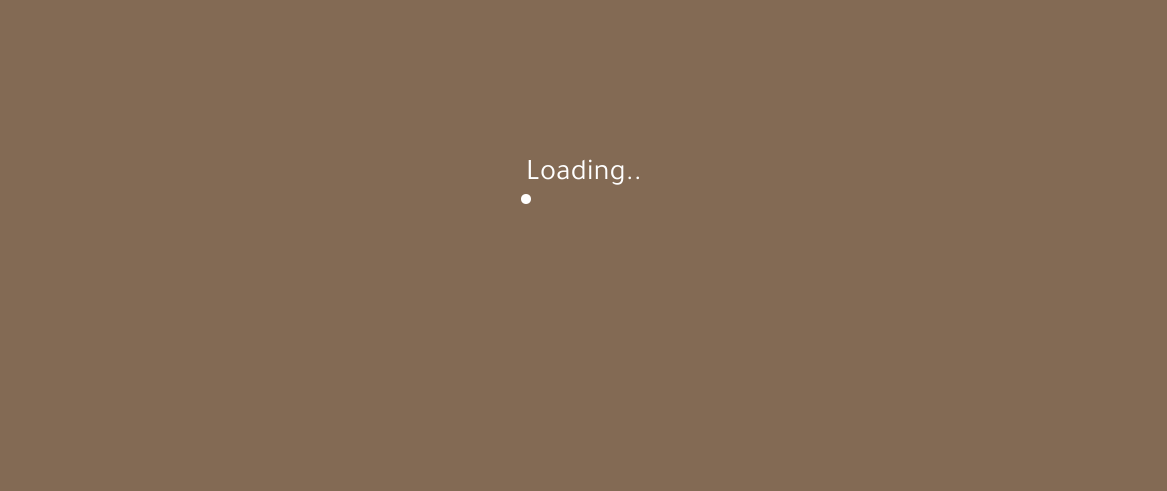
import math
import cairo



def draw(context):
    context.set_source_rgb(131 / 255, 106 / 255, 84 / 255)
    context.paint()
    context.set_source_rgb(1, 1, 1)
    context.arc(526, 199, 5, 0, 2 * math.pi)
    context.fill()
    context.select_font_face("Tajawal")
    context.set_font_size(30)
    context.move_to(526, 179)
    context.show_text("Loading..")


surface = cairo.ImageSurface(cairo.Format.RGB24, 1167, 491)
context = cairo.Context(surface)
options = cairo.FontOptions()
options.set_hint_metrics(cairo.HintMetrics.OFF)
options.set_hint_style(cairo.HintStyle.NONE)
context.set_font_options(options)
context.set_miter_limit(4)
draw(context)
surface.write_to_png("out.png")
